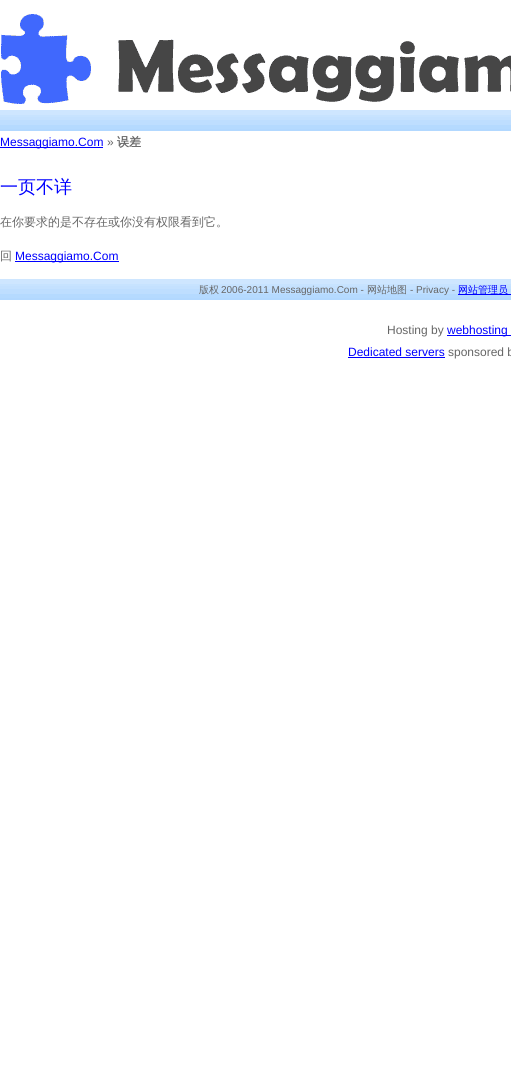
import math
import cairo



def draw_image(context, path, x, y, w, h):
    context.save()
    context.set_source_surface(cairo.ImageSurface.create_from_png(path), x, y)
    context.rectangle(x, y, w, h)
    context.fill()
    context.restore()


def draw(context):
    context.set_source_rgb(1, 1, 1)
    context.paint()
    draw_image(context, "images/1.png", 1, 14, 510, 90)
    draw_image(context, "images/2.png", 0, 110, 511, 21)
    context.set_source_rgb(0, 0, 1)
    context.rectangle(0, 147, 103, 1)
    context.fill()
    context.rectangle(15, 261, 104, 1)
    context.fill()
    draw_image(context, "images/2.png", 0, 279, 511, 21)
    context.rectangle(458, 294, 53, 1)
    context.fill()
    context.rectangle(447, 335, 64, 1)
    context.fill()
    context.rectangle(348, 357, 97, 1)
    context.fill()
    context.select_font_face("Liberation Sans")
    context.set_font_size(12)
    context.move_to(0, 146)
    context.show_text("Messaggiamo.Com")
    context.set_source_rgb(102 / 255, 102 / 255, 102 / 255)
    context.move_to(107, 146)
    context.show_text("»")
    context.select_font_face("WenQuanYi Zen Hei", cairo.FontSlant.NORMAL, cairo.FontWeight.BOLD)
    context.move_to(117, 146)
    context.show_text("误差")
    context.select_font_face("WenQuanYi Zen Hei Medium")
    context.set_font_size(18)
    context.set_source_rgb(0, 0, 1)
    context.move_to(0, 193)
    context.show_text("一页不详")
    context.set_font_size(12)
    context.set_source_rgb(102 / 255, 102 / 255, 102 / 255)
    context.move_to(0, 226)
    context.show_text("在你要求的是不存在或你没有权限看到它。")
    context.move_to(0, 260)
    context.show_text("回")
    context.select_font_face("Liberation Sans")
    context.set_source_rgb(0, 0, 1)
    context.move_to(15, 260)
    context.show_text("Messaggiamo.Com")
    context.select_font_face("WenQuanYi Zen Hei Medium")
    context.set_font_size(10)
    context.set_source_rgb(102 / 255, 102 / 255, 102 / 255)
    context.move_to(199, 293)
    context.show_text("版权")
    context.select_font_face("Liberation Sans")
    context.move_to(221, 293)
    context.show_text("2006-2011 Messaggiamo.Com -")
    context.select_font_face("WenQuanYi Zen Hei Medium")
    context.move_to(367, 293)
    context.show_text("网站地图")
    context.select_font_face("Liberation Sans")
    context.move_to(410, 293)
    context.show_text("- Privacy -")
    context.select_font_face("WenQuanYi Zen Hei Medium")
    context.set_source_rgb(0, 0, 1)
    context.move_to(458, 293)
    context.show_text("网站管理员")
    context.select_font_face("Liberation Sans")
    context.set_font_size(12)
    context.set_source_rgb(102 / 255, 102 / 255, 102 / 255)
    context.move_to(387, 334)
    context.show_text("Hosting by")
    context.set_source_rgb(0, 0, 1)
    context.move_to(447, 334)
    context.show_text("webhosting")
    context.move_to(348, 356)
    context.show_text("Dedicated servers")
    context.set_source_rgb(102 / 255, 102 / 255, 102 / 255)
    context.move_to(448, 356)
    context.show_text("sponsored b")


surface = cairo.ImageSurface(cairo.Format.RGB24, 511, 1085)
context = cairo.Context(surface)
options = cairo.FontOptions()
options.set_hint_metrics(cairo.HintMetrics.OFF)
options.set_hint_style(cairo.HintStyle.NONE)
context.set_font_options(options)
context.set_miter_limit(4)
draw(context)
surface.write_to_png("out.png")
